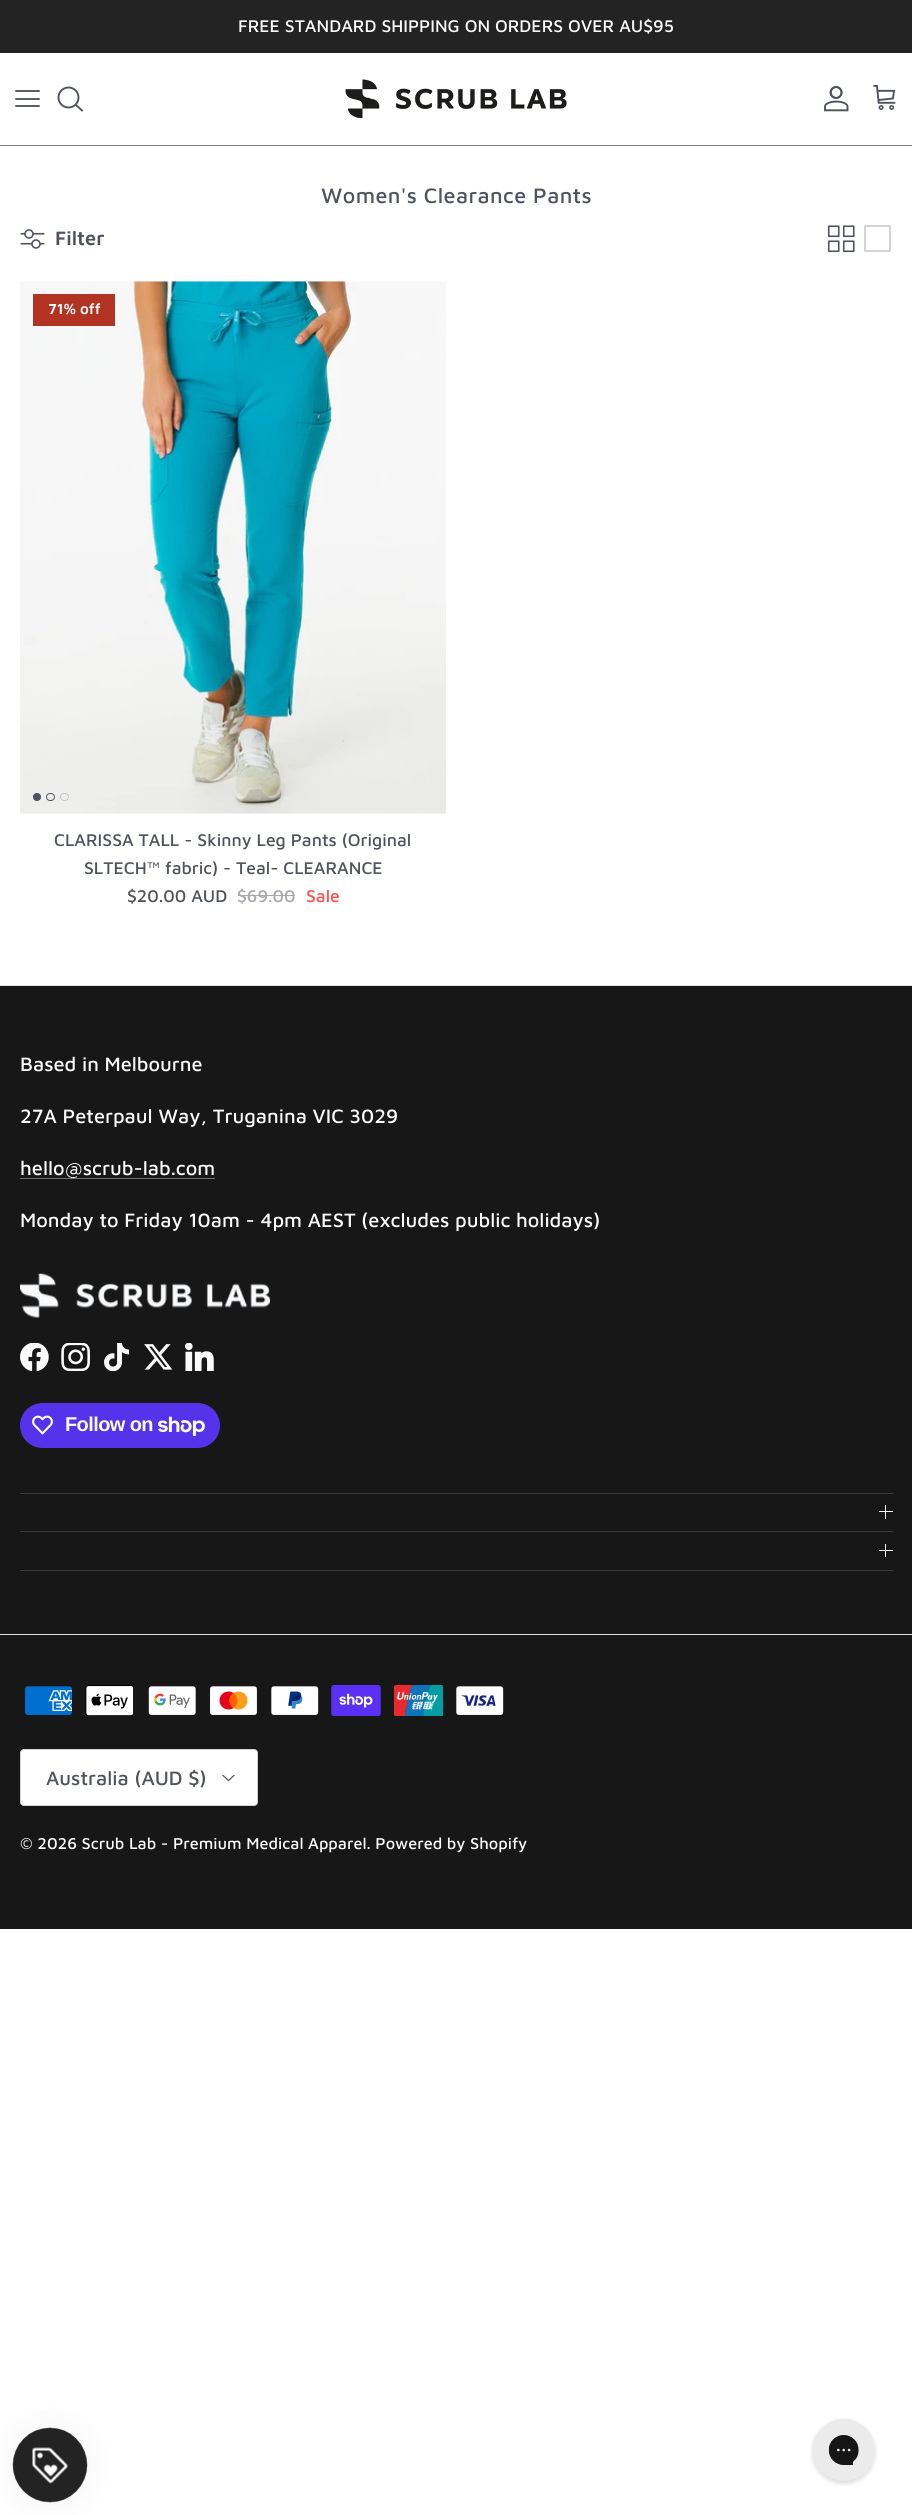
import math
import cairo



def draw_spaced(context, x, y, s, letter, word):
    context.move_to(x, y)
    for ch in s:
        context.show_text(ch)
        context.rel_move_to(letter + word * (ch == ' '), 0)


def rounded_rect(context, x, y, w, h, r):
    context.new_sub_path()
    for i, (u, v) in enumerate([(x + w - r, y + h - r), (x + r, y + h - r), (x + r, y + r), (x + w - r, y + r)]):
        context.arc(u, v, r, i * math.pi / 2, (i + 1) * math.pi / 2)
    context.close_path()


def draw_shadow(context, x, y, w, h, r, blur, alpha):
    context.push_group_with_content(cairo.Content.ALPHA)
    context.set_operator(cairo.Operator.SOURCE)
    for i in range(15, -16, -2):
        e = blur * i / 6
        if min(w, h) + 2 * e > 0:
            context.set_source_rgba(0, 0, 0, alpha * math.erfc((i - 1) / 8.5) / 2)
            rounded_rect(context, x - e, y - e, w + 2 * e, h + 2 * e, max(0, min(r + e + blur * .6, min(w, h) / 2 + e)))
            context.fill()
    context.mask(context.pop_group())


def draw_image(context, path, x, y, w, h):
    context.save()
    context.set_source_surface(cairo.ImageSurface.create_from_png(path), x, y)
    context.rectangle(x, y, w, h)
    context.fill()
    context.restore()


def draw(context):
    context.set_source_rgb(1, 1, 1)
    context.paint()
    context.set_source_rgb(35 / 255, 35 / 255, 35 / 255)
    context.rectangle(0, 0, 912, 53)
    context.fill()
    context.set_source_rgb(128 / 255, 130 / 255, 134 / 255)
    context.rectangle(0, 145, 912, 1)
    context.fill()
    context.new_path()
    context.move_to(16, 99)
    context.line_to(39, 99)
    context.move_to(16, 91)
    context.line_to(39, 91)
    context.move_to(16, 106)
    context.line_to(39, 106)
    context.set_source_rgb(78 / 255, 83 / 255, 95 / 255)
    context.set_line_width(1.9)
    context.set_line_cap(cairo.LineCap.ROUND)
    context.set_line_join(cairo.LineJoin.ROUND)
    context.stroke()
    context.arc(68.5, 97.5, 10, 0, 2 * math.pi)
    context.set_line_cap(cairo.LineCap.BUTT)
    context.set_line_join(cairo.LineJoin.MITER)
    context.stroke()
    context.new_path()
    context.move_to(76, 105)
    context.line_to(82, 110.5)
    context.set_line_cap(cairo.LineCap.SQUARE)
    context.stroke()
    draw_image(context, "images/1.png", 345, 79, 222, 40)
    draw_image(context, "images/2.png", 824, 86, 25, 26)
    draw_image(context, "images/3.png", 873, 85, 23, 25)
    draw_image(context, "images/4.png", 20, 229, 25, 20)
    draw_image(context, "images/5.png", 827, 225, 28, 28)
    context.new_path()
    context.move_to(865, 226)
    context.line_to(890, 226)
    context.line_to(890, 251)
    context.line_to(865, 251)
    context.line_to(865, 226)
    context.set_source_rgb(202 / 255, 203 / 255, 207 / 255)
    context.set_line_width(1.6)
    context.set_line_cap(cairo.LineCap.ROUND)
    context.set_line_join(cairo.LineJoin.ROUND)
    context.stroke()
    draw_image(context, "images/6.png", 20, 281, 426, 533)
    context.set_source_rgb(179 / 255, 51 / 255, 35 / 255)
    context.rectangle(33, 294, 82, 32)
    context.fill()
    context.set_source_rgb(78 / 255, 83 / 255, 95 / 255)
    context.arc(37, 797, 3.5, 0, 2 * math.pi)
    context.fill_preserve()
    context.set_line_width(1)
    context.set_line_cap(cairo.LineCap.BUTT)
    context.set_line_join(cairo.LineJoin.MITER)
    context.stroke()
    rounded_rect(context, 46.5, 793.5, 8, 7, 3.5)
    context.stroke()
    rounded_rect(context, 60.5, 793.5, 8, 7, 3.5)
    context.set_source_rgb(198 / 255, 199 / 255, 201 / 255)
    context.stroke()
    context.set_source_rgb(167 / 255, 169 / 255, 175 / 255)
    context.rectangle(238, 895, 57, 1)
    context.fill()
    context.set_source_rgb(23 / 255, 23 / 255, 23 / 255)
    context.rectangle(0, 986, 912, 943)
    context.fill()
    context.set_source_rgb(228 / 255, 228 / 255, 228 / 255)
    context.rectangle(0, 985, 912, 1)
    context.fill()
    context.set_source_rgb(114 / 255, 114 / 255, 114 / 255)
    context.rectangle(20, 1178, 195, 1)
    context.fill()
    draw_image(context, "images/7.png", 20, 1273, 250, 45)
    draw_image(context, "images/8.png", 20, 1343, 29, 28)
    draw_image(context, "images/9.png", 61, 1343, 29, 28)
    draw_image(context, "images/10.png", 104, 1343, 25, 28)
    draw_image(context, "images/11.png", 144, 1344, 29, 26)
    draw_image(context, "images/12.png", 185, 1343, 29, 28)
    context.set_source_rgb(84 / 255, 51 / 255, 235 / 255)
    rounded_rect(context, 20, 1403, 200, 45, 22.5)
    context.fill()
    draw_image(context, "images/13.png", 32, 1415, 21, 20)
    draw_image(context, "images/14.png", 158, 1416, 47, 20)
    context.set_source_rgb(57 / 255, 57 / 255, 57 / 255)
    context.rectangle(20, 1493, 873, 1)
    context.fill()
    context.set_source_rgb(250 / 255, 250 / 255, 250 / 255)
    context.rectangle(885, 1505, 1, 14)
    context.fill()
    context.rectangle(879, 1511, 14, 1)
    context.fill()
    context.set_source_rgb(57 / 255, 57 / 255, 57 / 255)
    context.rectangle(20, 1531, 873, 1)
    context.fill()
    context.rectangle(20, 1570, 873, 1)
    context.fill()
    context.set_source_rgb(250 / 255, 250 / 255, 250 / 255)
    context.rectangle(885, 1544, 1, 13)
    context.fill()
    context.rectangle(879, 1550, 14, 1)
    context.fill()
    context.set_source_rgb(228 / 255, 228 / 255, 228 / 255)
    context.rectangle(0, 1634, 912, 1)
    context.fill()
    draw_image(context, "images/15.png", 25, 1686, 47, 29)
    draw_image(context, "images/16.png", 85, 1685, 49, 31)
    draw_image(context, "images/17.png", 148, 1686, 48, 29)
    draw_image(context, "images/18.png", 210, 1686, 47, 29)
    draw_image(context, "images/19.png", 271, 1686, 48, 29)
    draw_image(context, "images/20.png", 331, 1685, 50, 31)
    draw_image(context, "images/21.png", 394, 1685, 49, 31)
    draw_image(context, "images/22.png", 456, 1686, 48, 29)
    context.set_source_rgb(1, 1, 1)
    rounded_rect(context, 20.5, 1749.5, 237, 56, 3.5)
    context.fill_preserve()
    context.set_source_rgb(211 / 255, 212 / 255, 215 / 255)
    context.stroke()
    context.new_path()
    context.move_to(234.5, 1775)
    context.line_to(228.5, 1780.5)
    context.line_to(222.5, 1775)
    context.set_source_rgb(78 / 255, 83 / 255, 95 / 255)
    context.set_line_width(1.2)
    context.stroke()
    context.set_source_rgb(0, 0, 0)
    draw_shadow(context, 13, 2428, 75, 75, 37.5, 15.5, 0.05)
    draw_image(context, "images/23.png", 12, 2427, 76, 76)
    draw_image(context, "images/24.png", 810, 2418, 68, 68)
    context.select_font_face("Maven Pro Medium")
    context.set_font_size(17.5)
    context.set_source_rgb(250 / 255, 250 / 255, 250 / 255)
    context.move_to(238, 32)
    context.show_text("FREE STANDARD SHIPPING ON ORDERS OVER AU$95")
    context.set_font_size(21.6)
    context.set_source_rgb(78 / 255, 83 / 255, 95 / 255)
    draw_spaced(context, 321, 203, "Women's Clearance Pants", 0.4, 0)
    context.select_font_face("Maven Pro SemiBold")
    context.set_font_size(20)
    context.move_to(55, 245)
    context.show_text("Filter")
    context.set_font_size(15)
    context.set_source_rgb(250 / 255, 250 / 255, 250 / 255)
    context.move_to(48, 314)
    context.show_text("71% off")
    context.select_font_face("Maven Pro Medium")
    context.set_font_size(17.5)
    context.set_source_rgb(78 / 255, 83 / 255, 95 / 255)
    context.move_to(54, 846)
    context.show_text("CLARISSA TALL - Skinny Leg Pants (Original")
    context.move_to(84, 874)
    context.show_text("SLTECH™ fabric) - Teal- CLEARANCE")
    context.move_to(127, 902)
    context.show_text("$20.00 AUD")
    context.set_source_rgb(167 / 255, 169 / 255, 175 / 255)
    context.move_to(237, 902)
    context.show_text("$69.00")
    context.set_source_rgb(1, 78 / 255, 78 / 255)
    context.move_to(306, 902)
    context.show_text("Sale")
    context.set_font_size(20)
    context.set_source_rgb(250 / 255, 250 / 255, 250 / 255)
    context.move_to(20, 1071)
    context.show_text("Based in Melbourne")
    context.move_to(20, 1123)
    context.show_text("27A Peterpaul Way, Truganina VIC 3029")
    context.move_to(20, 1175)
    context.show_text("hello@scrub-lab.com")
    context.move_to(20, 1227)
    context.show_text("Monday to Friday 10am - 4pm AEST (excludes public holidays)")
    context.select_font_face("Liberation Sans", cairo.FontSlant.NORMAL, cairo.FontWeight.BOLD)
    draw_spaced(context, 65, 1431, "Follow on", -0.6, 0)
    context.select_font_face("Maven Pro Medium")
    context.set_source_rgb(78 / 255, 83 / 255, 95 / 255)
    context.move_to(46, 1785)
    context.show_text("Australia (AUD $)")
    context.set_font_size(16.25)
    context.set_source_rgb(250 / 255, 250 / 255, 250 / 255)
    context.move_to(20, 1849)
    context.show_text("© 2026 Scrub Lab - Premium Medical Apparel. Powered by Shopify")


surface = cairo.ImageSurface(cairo.Format.RGB24, 912, 2515)
context = cairo.Context(surface)
options = cairo.FontOptions()
options.set_hint_metrics(cairo.HintMetrics.OFF)
options.set_hint_style(cairo.HintStyle.NONE)
context.set_font_options(options)
context.set_miter_limit(4)
draw(context)
surface.write_to_png("out.png")
